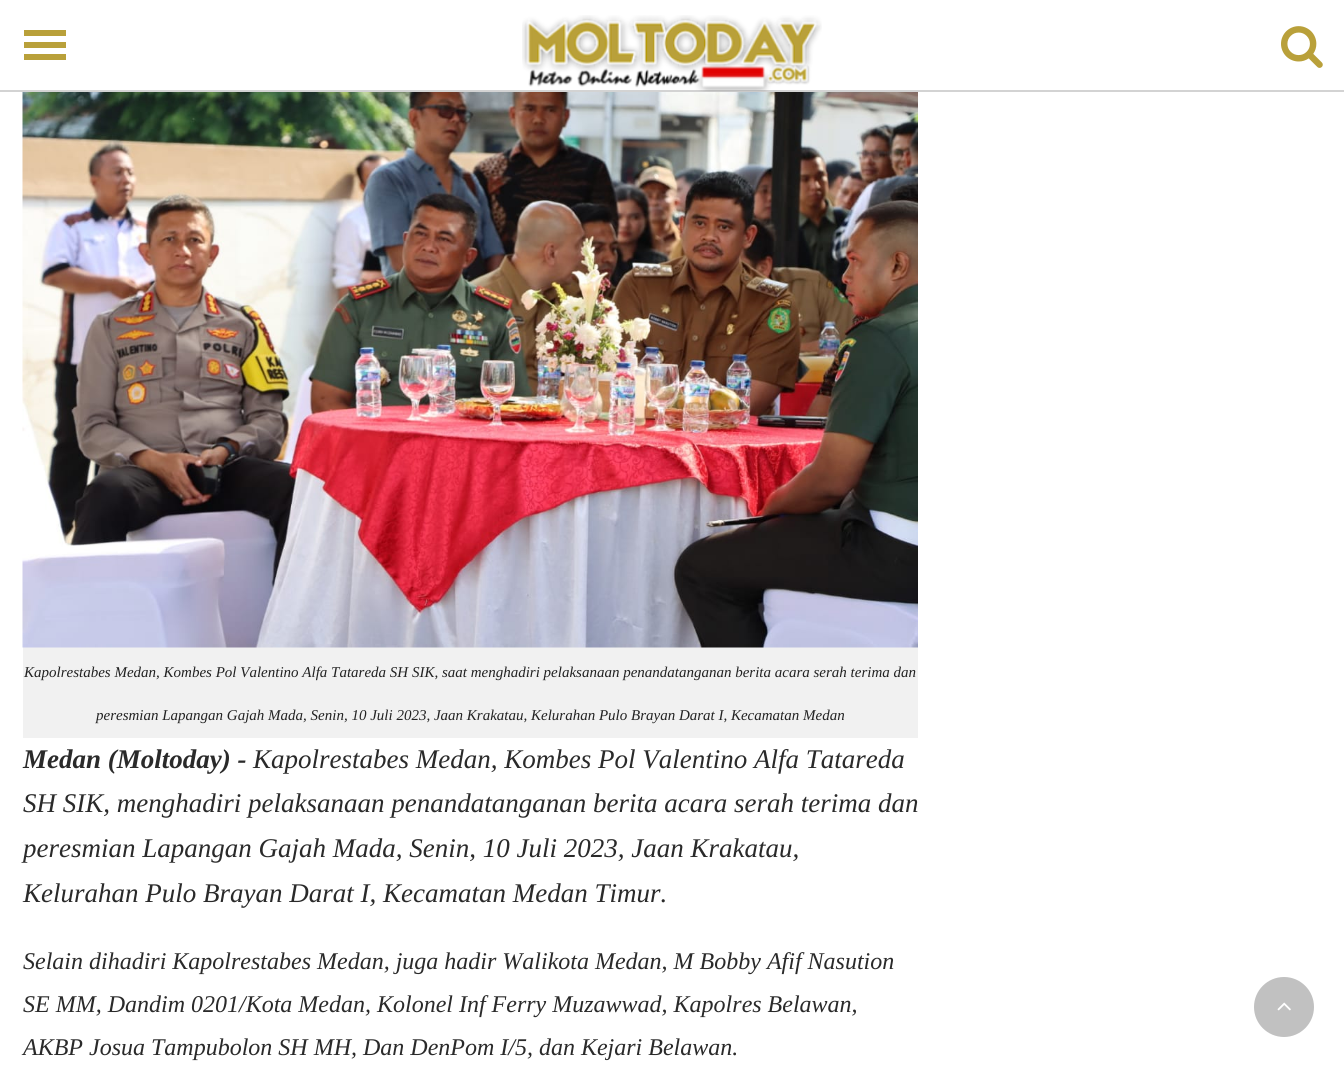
import math
import cairo



def draw_image(context, path, x, y, w, h):
    context.save()
    context.set_source_surface(cairo.ImageSurface.create_from_png(path), x, y)
    context.rectangle(x, y, w, h)
    context.fill()
    context.restore()


def draw(context):
    context.set_source_rgb(1, 1, 1)
    context.paint()
    context.set_source_rgb(211 / 255, 211 / 255, 211 / 255)
    context.rectangle(0, 90, 1344, 2)
    context.fill()
    draw_image(context, "images/1.png", 522, 15, 300, 77)
    context.set_source_rgb(185 / 255, 160 / 255, 58 / 255)
    context.rectangle(24, 30, 42, 6)
    context.fill()
    context.rectangle(24, 42, 42, 6)
    context.fill()
    context.rectangle(24, 54, 42, 6)
    context.fill()
    draw_image(context, "images/2.png", 1281, 26, 42, 42)
    context.set_source_rgb(241 / 255, 241 / 255, 241 / 255)
    context.rectangle(23, 647, 895, 91)
    context.fill()
    draw_image(context, "images/3.png", 22, 92, 896, 556)
    context.set_source_rgb(193 / 255, 193 / 255, 193 / 255)
    context.arc(1284, 1007, 30, 0, 2 * math.pi)
    context.fill()
    draw_image(context, "images/4.png", 1277, 1002, 14, 9)
    context.select_font_face("Liberation Serif", cairo.FontSlant.ITALIC)
    context.set_font_size(15)
    context.set_source_rgb(34 / 255, 34 / 255, 34 / 255)
    context.move_to(24, 677)
    context.show_text("Kapolrestabes Medan, Kombes Pol Valentino Alfa Tatareda SH SIK, saat menghadiri pelaksanaan penandatanganan berita acara serah terima dan")
    context.move_to(96, 720)
    context.show_text("peresmian Lapangan Gajah Mada, Senin, 10 Juli 2023, Jaan Krakatau, Kelurahan Pulo Brayan Darat I, Kecamatan Medan")
    context.select_font_face("Liberation Serif", cairo.FontSlant.ITALIC, cairo.FontWeight.BOLD)
    context.set_font_size(27)
    context.set_source_rgb(42 / 255, 42 / 255, 42 / 255)
    context.move_to(23, 768)
    context.show_text("Medan (Moltoday) -")
    context.select_font_face("Liberation Serif", cairo.FontSlant.ITALIC)
    context.move_to(253, 768)
    context.show_text("Kapolrestabes Medan, Kombes Pol Valentino Alfa Tatareda")
    context.move_to(23, 812)
    context.show_text("SH SIK, menghadiri pelaksanaan penandatanganan berita acara serah terima dan")
    context.move_to(23, 857)
    context.show_text("peresmian Lapangan Gajah Mada, Senin, 10 Juli 2023, Jaan Krakatau,")
    context.move_to(23, 902)
    context.show_text("Kelurahan Pulo Brayan Darat I, Kecamatan Medan Timur.")
    context.set_font_size(24)
    context.move_to(23, 969)
    context.show_text("Selain dihadiri Kapolrestabes Medan, juga hadir Walikota Medan, M Bobby Afif Nasution")
    context.move_to(23, 1012)
    context.show_text("SE MM, Dandim 0201/Kota Medan, Kolonel Inf Ferry Muzawwad, Kapolres Belawan,")
    context.move_to(23, 1055)
    context.show_text("AKBP Josua Tampubolon SH MH, Dan DenPom I/5, dan Kejari Belawan.")


surface = cairo.ImageSurface(cairo.Format.RGB24, 1344, 1080)
context = cairo.Context(surface)
options = cairo.FontOptions()
options.set_hint_metrics(cairo.HintMetrics.OFF)
options.set_hint_style(cairo.HintStyle.NONE)
context.set_font_options(options)
context.set_miter_limit(4)
draw(context)
surface.write_to_png("out.png")
